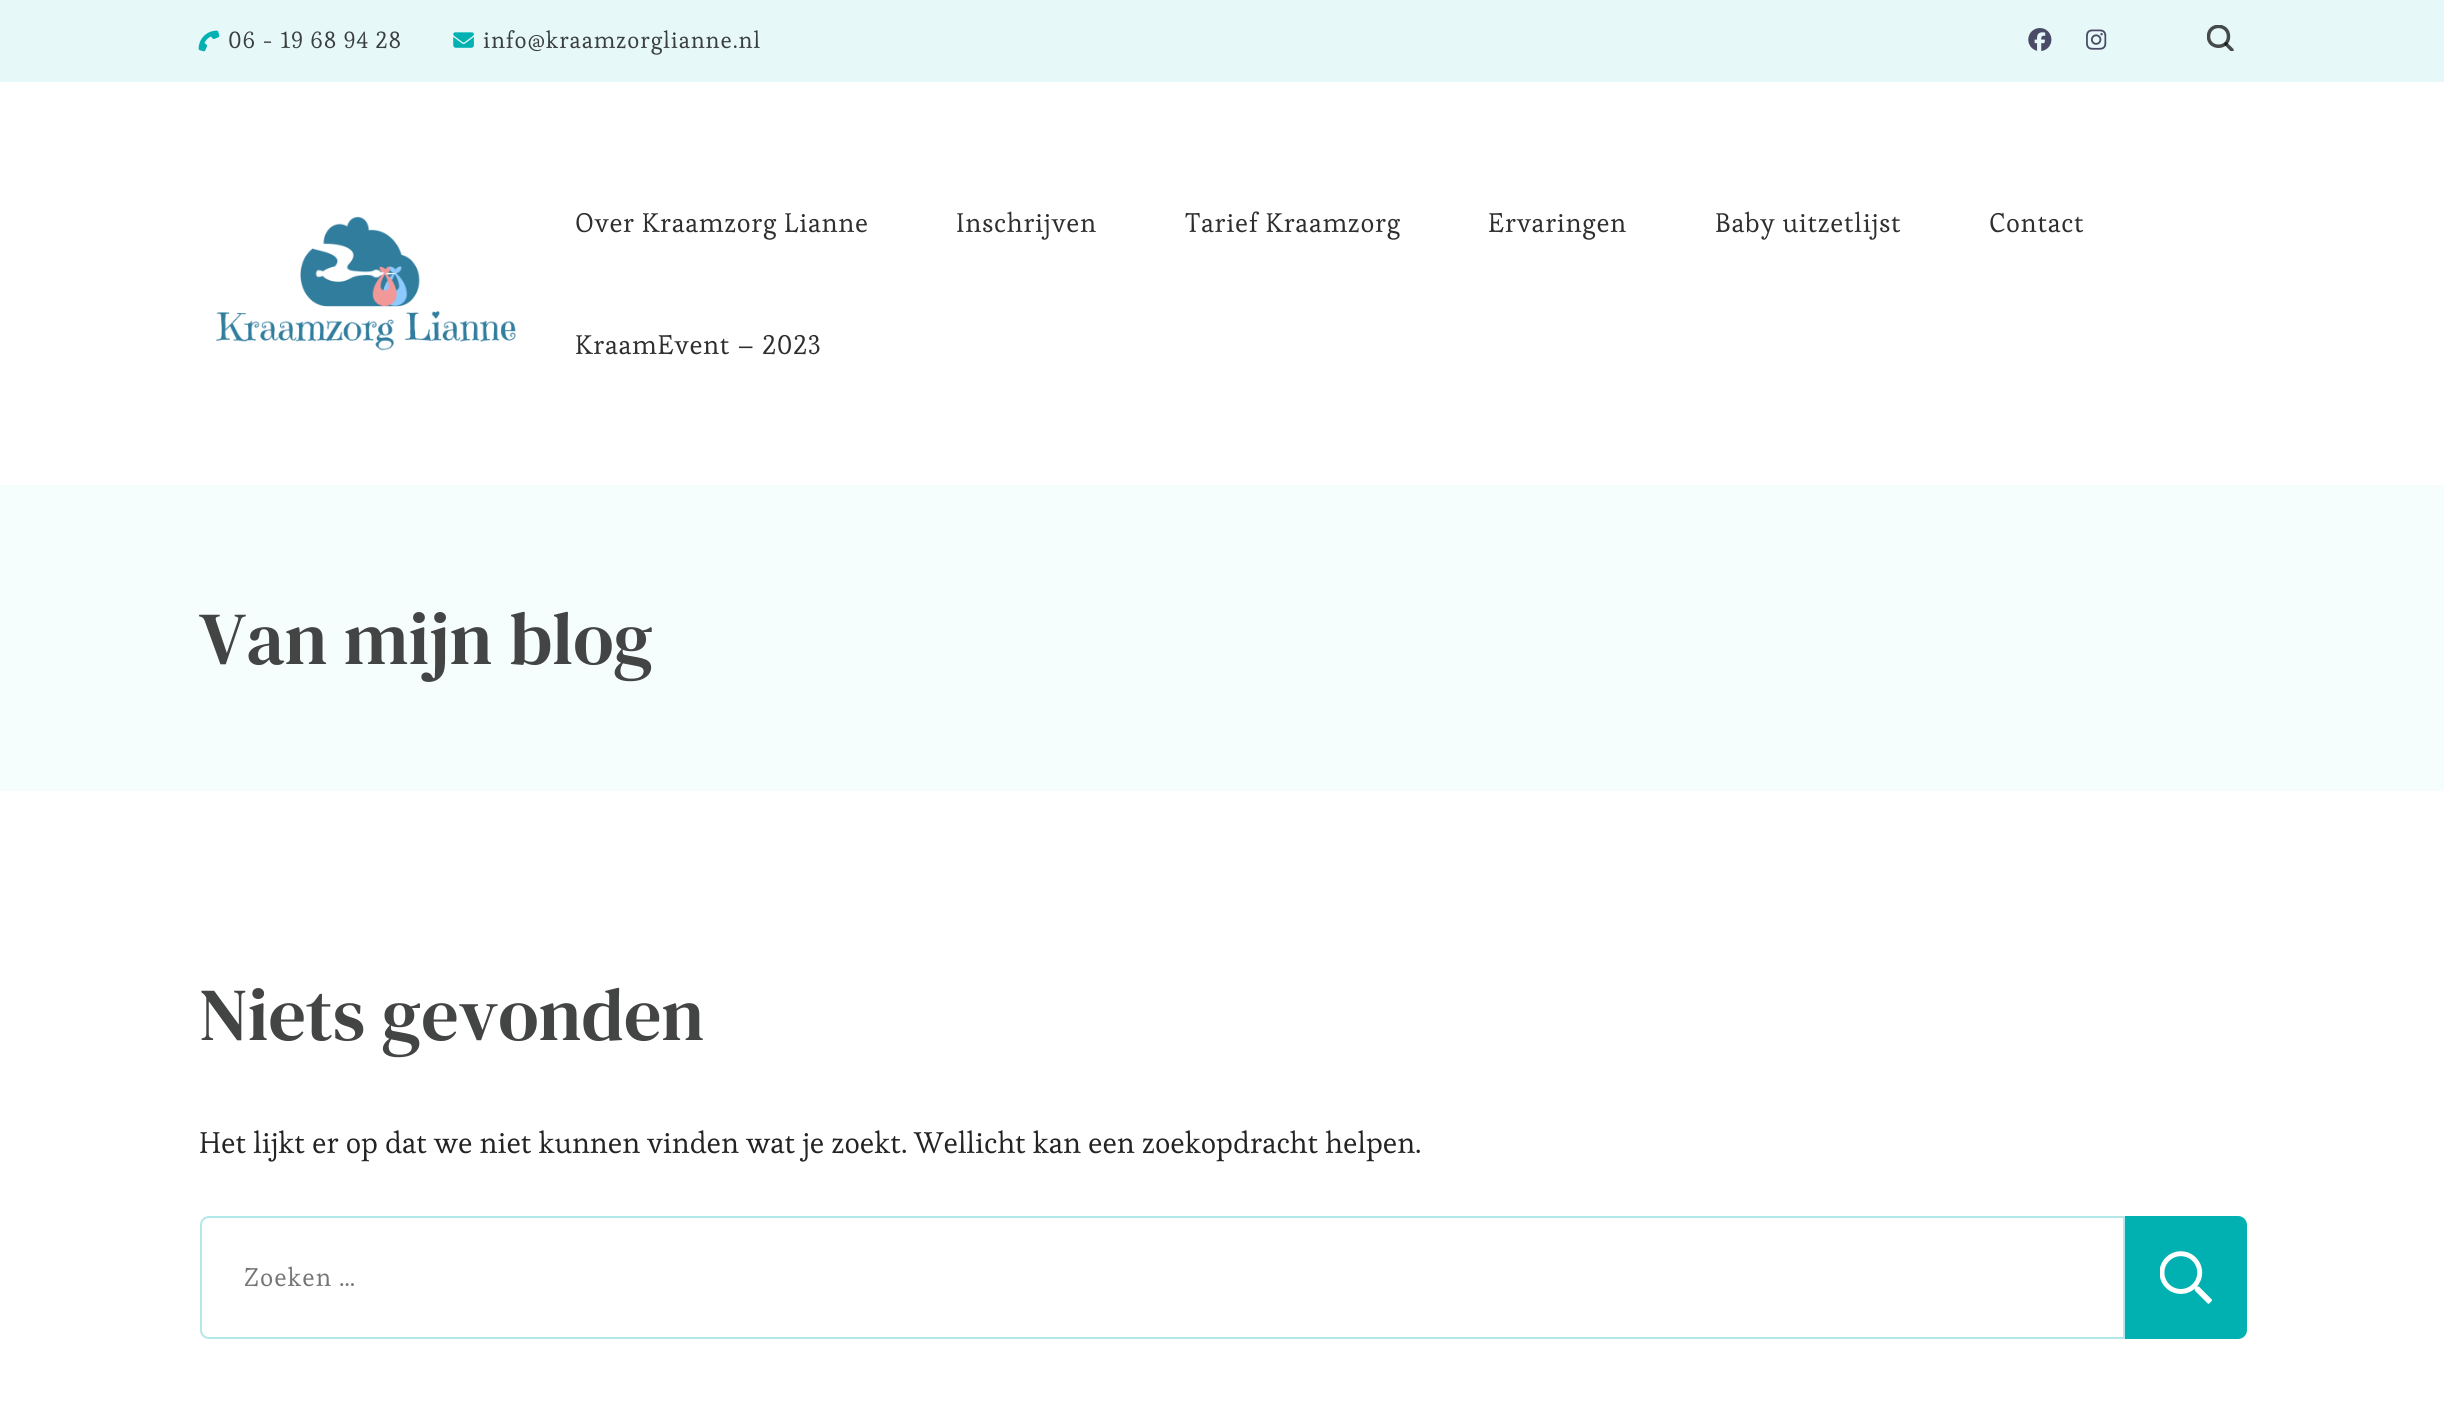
import math
import cairo



def draw_spaced(context, x, y, s, letter, word):
    context.move_to(x, y)
    for ch in s:
        context.show_text(ch)
        context.rel_move_to(letter + word * (ch == ' '), 0)


def draw_image(context, path, x, y, w, h):
    context.save()
    context.set_source_surface(cairo.ImageSurface.create_from_png(path), x, y)
    context.rectangle(x, y, w, h)
    context.fill()
    context.restore()


def draw(context):
    context.set_source_rgb(1, 1, 1)
    context.paint()
    context.set_source_rgb(230 / 255, 248 / 255, 248 / 255)
    context.rectangle(0, 0, 2444, 82)
    context.fill()
    draw_image(context, "images/1.png", 198, 30, 22, 22)
    draw_image(context, "images/2.png", 453, 32, 21, 16)
    draw_image(context, "images/3.png", 2028, 28, 24, 23)
    draw_image(context, "images/4.png", 2086, 29, 21, 21)
    context.save()
    context.rectangle(2207, 25, 28, 26)
    context.clip()
    context.new_path()
    context.move_to(2208.5, 36.5)
    context.curve_to(2208.5, 23, 2228.5, 23, 2228.5, 36.5)
    context.curve_to(2228.5, 49.5, 2208.5, 49.5, 2208.5, 36.5)
    context.close_path()
    context.set_source_rgb(69 / 255, 74 / 255, 74 / 255)
    context.set_line_width(3.5)
    context.stroke()
    context.new_path()
    context.move_to(2226, 44)
    context.line_to(2232, 50)
    context.set_source_rgba(0, 0, 0, 0.7)
    context.set_line_cap(cairo.LineCap.ROUND)
    context.stroke()
    context.restore()
    draw_image(context, "images/5.png", 216, 216, 300, 135)
    context.set_source_rgb(246 / 255, 253 / 255, 253 / 255)
    context.rectangle(0, 485, 2444, 306)
    context.fill()
    context.new_path()
    context.move_to(209, 1217)
    context.line_to(2124, 1217)
    context.line_to(2124, 1338)
    context.line_to(209, 1338)
    context.curve_to(204.5, 1338, 201, 1334.5, 201, 1330)
    context.line_to(201, 1225)
    context.curve_to(201, 1220.5, 204.5, 1217, 209, 1217)
    context.close_path()
    context.set_source_rgb(179 / 255, 232 / 255, 232 / 255)
    context.stroke()
    context.set_source_rgb(1 / 255, 177 / 255, 177 / 255)
    context.new_path()
    context.move_to(2125, 1216)
    context.line_to(2238, 1216)
    context.curve_to(2243, 1216, 2247, 1220, 2247, 1225)
    context.line_to(2247, 1330)
    context.curve_to(2247, 1335, 2243, 1339, 2238, 1339)
    context.line_to(2125, 1339)
    context.close_path()
    context.fill()
    draw_image(context, "images/6.png", 2160, 1251, 52, 53)
    context.select_font_face("Esteban")
    context.set_font_size(23.25)
    context.set_source_rgb(58 / 255, 62 / 255, 62 / 255)
    draw_spaced(context, 228, 48, "06 - 19 68 94 28", 0.9, 0)
    draw_spaced(context, 483, 48, "info@kraamzorglianne.nl", 0.9, 0)
    context.set_font_size(26.75)
    context.set_source_rgb(46 / 255, 46 / 255, 46 / 255)
    draw_spaced(context, 575, 232, "Over Kraamzorg Lianne", 0.7, 0)
    draw_spaced(context, 956, 232, "Inschrijven", 0.7, 0)
    draw_spaced(context, 1185, 232, "Tarief Kraamzorg", 0.7, 0)
    draw_spaced(context, 1488, 232, "Ervaringen", 0.7, 0)
    draw_spaced(context, 1715, 232, "Baby uitzetlijst", 0.7, 0)
    draw_spaced(context, 1989, 232, "Contact", 0.7, 0)
    draw_spaced(context, 575, 354, "KraamEvent – 2023", 0.7, 0)
    context.select_font_face("DM Serif Text")
    context.set_font_size(74.5)
    context.set_source_rgb(67 / 255, 68 / 255, 68 / 255)
    draw_spaced(context, 199, 664, "Van mijn blog", 0.1, 0)
    draw_spaced(context, 199, 1040, "Niets gevonden", 0.1, 0)
    context.select_font_face("Esteban")
    context.set_font_size(29.75)
    context.set_source_rgb(35 / 255, 35 / 255, 35 / 255)
    context.move_to(199, 1153)
    context.show_text("Het lijkt er op dat we niet kunnen vinden wat je zoekt. Wellicht kan een zoekopdracht helpen.")
    context.set_font_size(25.5)
    context.set_source_rgb(117 / 255, 117 / 255, 117 / 255)
    draw_spaced(context, 244, 1286, "Zoeken …", 1, 0)


surface = cairo.ImageSurface(cairo.Format.RGB24, 2444, 1415)
context = cairo.Context(surface)
options = cairo.FontOptions()
options.set_hint_metrics(cairo.HintMetrics.OFF)
options.set_hint_style(cairo.HintStyle.NONE)
context.set_font_options(options)
context.set_miter_limit(4)
draw(context)
surface.write_to_png("out.png")
